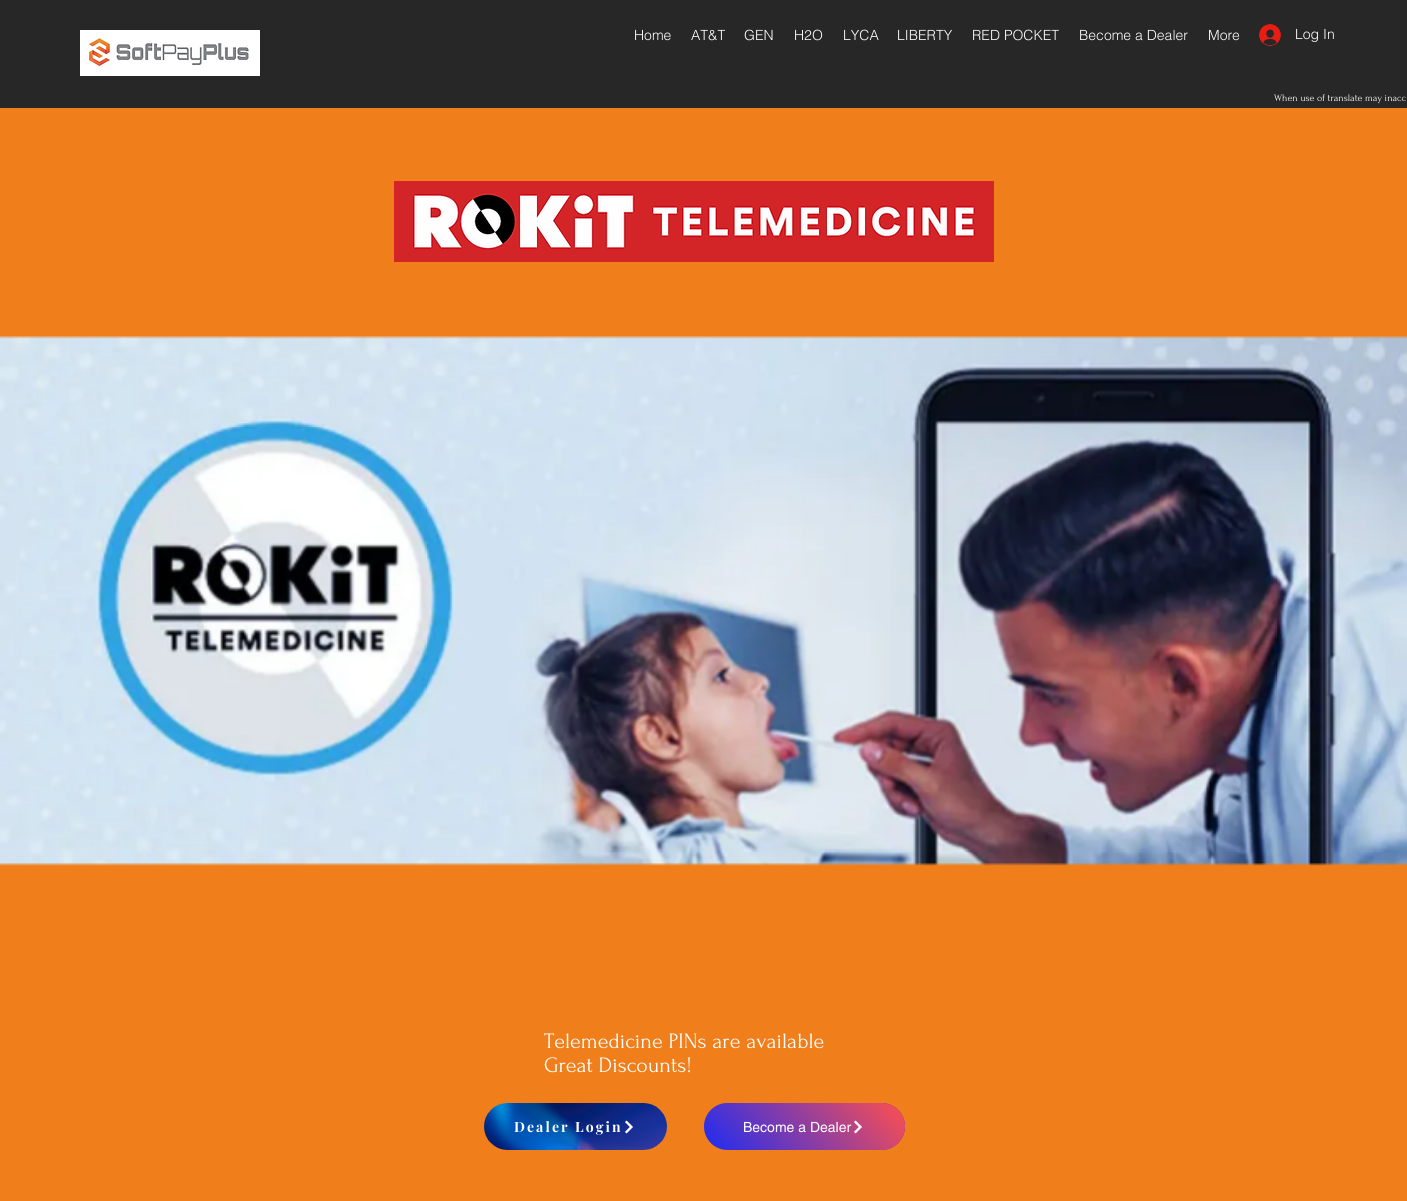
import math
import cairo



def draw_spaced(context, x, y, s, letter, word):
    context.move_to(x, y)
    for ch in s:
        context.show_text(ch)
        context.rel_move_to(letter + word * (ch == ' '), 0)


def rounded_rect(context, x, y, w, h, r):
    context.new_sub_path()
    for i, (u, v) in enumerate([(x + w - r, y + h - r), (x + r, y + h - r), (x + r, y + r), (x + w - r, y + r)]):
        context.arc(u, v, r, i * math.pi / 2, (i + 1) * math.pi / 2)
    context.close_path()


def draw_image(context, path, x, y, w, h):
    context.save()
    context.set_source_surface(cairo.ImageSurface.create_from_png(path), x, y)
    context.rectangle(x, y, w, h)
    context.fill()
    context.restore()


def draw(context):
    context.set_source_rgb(240 / 255, 127 / 255, 27 / 255)
    context.paint()
    context.set_source_rgb(39 / 255, 39 / 255, 39 / 255)
    context.rectangle(0, 0, 1407, 108)
    context.fill()
    draw_image(context, "images/1.png", 80, 30, 180, 46)
    draw_image(context, "images/2.png", 1259, 24, 22, 22)
    draw_image(context, "images/3.png", 394, 181, 600, 81)
    draw_image(context, "images/4.png", 484, 1103, 183, 47)
    draw_image(context, "images/5.png", 625, 1120, 8, 14)
    context.set_source_rgb(29 / 255, 44 / 255, 243 / 255)
    rounded_rect(context, 704, 1103, 201, 47, 23.5)
    context.fill()
    gradient = cairo.LinearGradient(873, 1067, 736, 1186)
    gradient.add_color_stop_rgba(0, 1, 79 / 255, 79 / 255, 1)
    gradient.add_color_stop_rgba(1, 1, 79 / 255, 79 / 255, 0)
    context.set_source(gradient)
    rounded_rect(context, 704, 1103, 201, 47, 23.5)
    context.fill()
    draw_image(context, "images/6.png", 854, 1120, 8, 14)
    draw_image(context, "images/7.png", 0, 336, 1407, 530)
    context.select_font_face("helvetica Light")
    context.set_font_size(14)
    context.set_source_rgb(1, 1, 1)
    context.move_to(634, 40)
    context.show_text("Home")
    context.move_to(691, 40)
    context.show_text("AT&T")
    context.move_to(744, 40)
    context.show_text("GEN")
    context.move_to(794, 40)
    context.show_text("H2O")
    context.move_to(843, 40)
    context.show_text("LYCA")
    context.move_to(897, 40)
    context.show_text("LIBERTY")
    context.move_to(972, 40)
    context.show_text("RED POCKET")
    context.move_to(1079, 40)
    context.show_text("Become a Dealer")
    context.move_to(1208, 40)
    context.show_text("More")
    context.move_to(1295, 39)
    context.show_text("Log In")
    context.select_font_face("Forum")
    context.set_font_size(10)
    context.move_to(1274, 101)
    context.show_text("When use of translate may inacc")
    context.set_font_size(22)
    context.move_to(544, 1048)
    context.show_text("Telemedicine PINs are available")
    context.move_to(544, 1072)
    context.show_text("Great Discounts!")
    context.select_font_face("Playfair Display", cairo.FontSlant.NORMAL, cairo.FontWeight.BOLD)
    context.set_font_size(14)
    draw_spaced(context, 514, 1132, "Dealer Login", 2.1, 0)
    context.select_font_face("helvetica")
    context.move_to(743, 1132)
    context.show_text("Become a Dealer")


surface = cairo.ImageSurface(cairo.Format.RGB24, 1407, 1201)
context = cairo.Context(surface)
options = cairo.FontOptions()
options.set_hint_metrics(cairo.HintMetrics.OFF)
options.set_hint_style(cairo.HintStyle.NONE)
context.set_font_options(options)
context.set_miter_limit(4)
draw(context)
surface.write_to_png("out.png")
